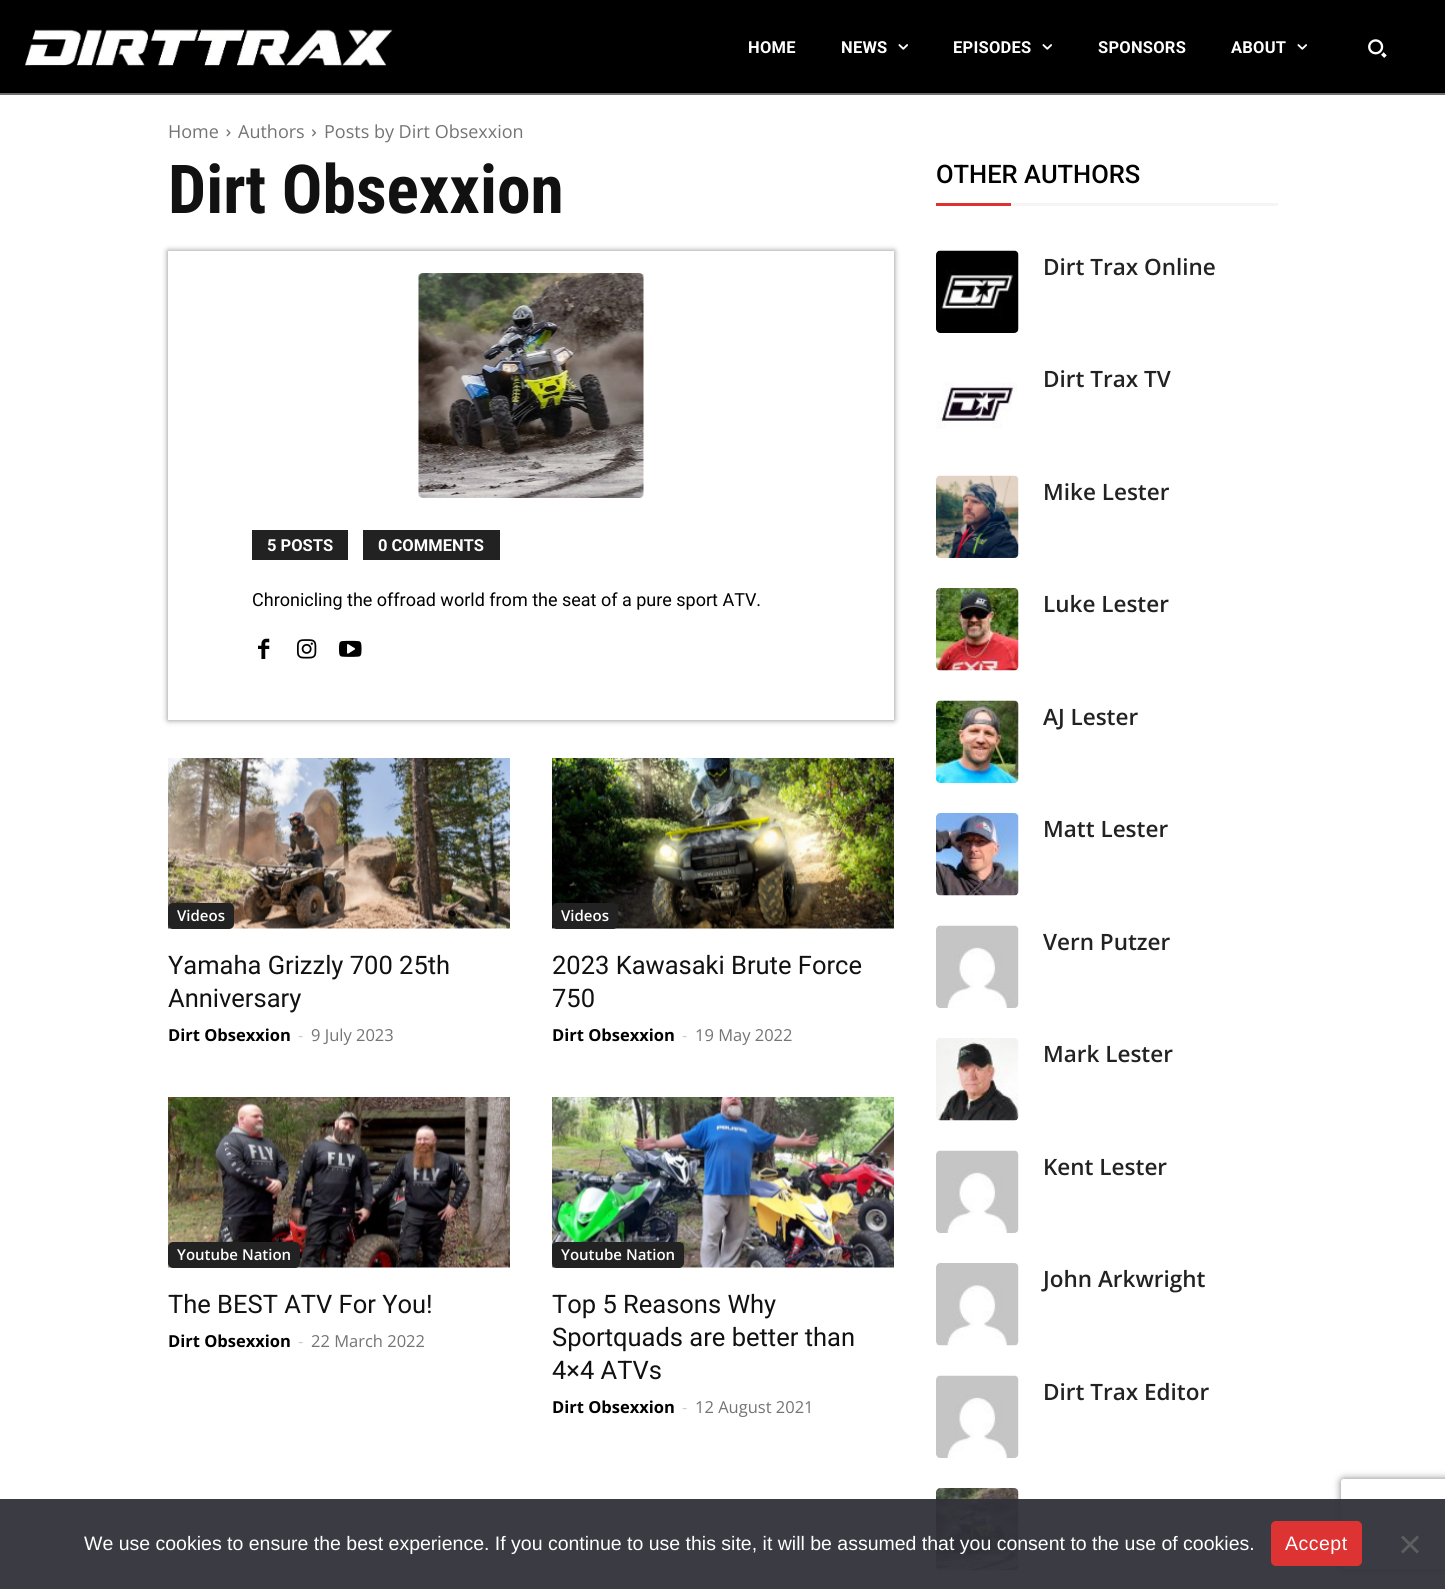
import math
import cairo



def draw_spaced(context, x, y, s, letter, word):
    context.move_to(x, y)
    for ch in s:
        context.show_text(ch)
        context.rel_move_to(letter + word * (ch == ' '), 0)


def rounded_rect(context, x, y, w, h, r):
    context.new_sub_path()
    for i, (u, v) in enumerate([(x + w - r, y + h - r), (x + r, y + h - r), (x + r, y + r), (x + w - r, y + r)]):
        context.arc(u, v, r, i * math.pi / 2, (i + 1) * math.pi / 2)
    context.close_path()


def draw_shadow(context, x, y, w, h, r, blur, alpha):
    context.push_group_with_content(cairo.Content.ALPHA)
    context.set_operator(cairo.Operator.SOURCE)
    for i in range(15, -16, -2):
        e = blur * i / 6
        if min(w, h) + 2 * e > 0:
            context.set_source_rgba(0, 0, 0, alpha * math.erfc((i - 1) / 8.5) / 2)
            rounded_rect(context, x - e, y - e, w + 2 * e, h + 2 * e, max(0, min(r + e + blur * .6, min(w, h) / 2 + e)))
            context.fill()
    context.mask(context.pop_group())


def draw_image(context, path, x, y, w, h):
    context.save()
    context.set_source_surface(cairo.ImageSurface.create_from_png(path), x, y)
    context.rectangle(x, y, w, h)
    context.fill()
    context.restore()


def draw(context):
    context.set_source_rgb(1, 1, 1)
    context.paint()
    context.set_source_rgb(0, 0, 0)
    context.rectangle(0, 0, 1445, 93)
    context.fill()
    context.set_source_rgb(109 / 255, 109 / 255, 109 / 255)
    context.rectangle(0, 93, 1445, 2)
    context.fill()
    draw_image(context, "images/1.png", 25, 29, 368, 37)
    draw_image(context, "images/2.png", 898, 44, 10, 6)
    draw_image(context, "images/2.png", 1042, 44, 10, 6)
    draw_image(context, "images/2.png", 1297, 44, 10, 6)
    draw_image(context, "images/3.png", 1368, 39, 19, 19)
    draw_image(context, "images/4.png", 226, 129, 5, 8)
    draw_image(context, "images/5.png", 312, 129, 4, 8)
    context.save()
    context.set_fill_rule(cairo.FillRule.EVEN_ODD)
    context.new_path()
    context.move_to(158, 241)
    context.line_to(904, 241)
    context.line_to(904, 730)
    context.line_to(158, 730)
    context.close_path()
    context.move_to(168, 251)
    context.line_to(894, 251)
    context.line_to(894, 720)
    context.line_to(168, 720)
    context.close_path()
    context.clip()
    context.set_source_rgb(136 / 255, 136 / 255, 136 / 255)
    draw_shadow(context, 168, 251, 726, 469, 0, 3, 1)
    context.restore()
    draw_image(context, "images/6.png", 418, 273, 226, 225)
    context.set_source_rgb(34 / 255, 34 / 255, 34 / 255)
    context.rectangle(252, 530, 96, 30)
    context.fill()
    context.rectangle(363, 530, 137, 30)
    context.fill()
    draw_image(context, "images/7.png", 258, 638, 12, 21)
    draw_image(context, "images/8.png", 297, 639, 20, 20)
    draw_image(context, "images/9.png", 339, 640, 23, 17)
    draw_image(context, "images/10.png", 168, 758, 342, 171)
    rounded_rect(context, 168, 903, 66, 26, 5)
    context.fill()
    draw_image(context, "images/11.png", 552, 758, 342, 171)
    rounded_rect(context, 552, 903, 66, 26, 5)
    context.fill()
    draw_image(context, "images/12.png", 168, 1097, 342, 171)
    rounded_rect(context, 168, 1242, 132, 26, 5)
    context.fill()
    draw_image(context, "images/13.png", 552, 1097, 342, 171)
    rounded_rect(context, 552, 1242, 132, 26, 5)
    context.fill()
    context.set_source_rgb(221 / 255, 51 / 255, 51 / 255)
    context.rectangle(936, 203, 75, 3)
    context.fill()
    context.set_source_rgb(245 / 255, 245 / 255, 245 / 255)
    context.rectangle(1011, 203, 267, 3)
    context.fill()
    draw_image(context, "images/14.png", 936, 250, 83, 83)
    draw_image(context, "images/15.png", 936, 382, 81, 47)
    draw_image(context, "images/16.png", 936, 475, 83, 83)
    draw_image(context, "images/17.png", 936, 588, 83, 83)
    draw_image(context, "images/18.png", 936, 700, 83, 83)
    draw_image(context, "images/19.png", 936, 813, 83, 83)
    draw_image(context, "images/20.png", 936, 925, 83, 83)
    draw_image(context, "images/21.png", 936, 1038, 83, 83)
    draw_image(context, "images/22.png", 936, 1150, 83, 83)
    draw_image(context, "images/23.png", 936, 1263, 83, 83)
    draw_image(context, "images/20.png", 936, 1375, 83, 83)
    draw_image(context, "images/24.png", 936, 1488, 83, 83)
    context.save()
    context.set_fill_rule(cairo.FillRule.EVEN_ODD)
    context.new_path()
    context.move_to(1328, 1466)
    context.line_to(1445, 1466)
    context.line_to(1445, 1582)
    context.line_to(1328, 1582)
    context.close_path()
    context.move_to(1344, 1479)
    context.line_to(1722, 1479)
    context.curve_to(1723.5, 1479, 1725, 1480.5, 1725, 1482)
    context.line_to(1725, 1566)
    context.curve_to(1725, 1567.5, 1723.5, 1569, 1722, 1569)
    context.line_to(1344, 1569)
    context.curve_to(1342.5, 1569, 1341, 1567.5, 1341, 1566)
    context.line_to(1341, 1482)
    context.curve_to(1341, 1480.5, 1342.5, 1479, 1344, 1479)
    context.close_path()
    context.clip()
    context.set_source_rgb(128 / 255, 128 / 255, 128 / 255)
    draw_shadow(context, 1341, 1479, 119, 90, 3, 4, 1)
    context.restore()
    context.set_source_rgba(50 / 255, 50 / 255, 58 / 255, 0.95)
    context.rectangle(0, 1499, 1445, 90)
    context.fill()
    context.set_source_rgb(221 / 255, 51 / 255, 51 / 255)
    rounded_rect(context, 1271, 1521, 91, 45, 5)
    context.fill()
    context.set_source_rgb(94 / 255, 94 / 255, 98 / 255)
    context.new_path()
    context.move_to(1417, 1535.5)
    context.line_to(1419, 1537.5)
    context.line_to(1403, 1553.5)
    context.line_to(1401, 1551.5)
    context.close_path()
    context.fill()
    context.new_path()
    context.move_to(1401, 1537.5)
    context.line_to(1403, 1535.5)
    context.line_to(1419, 1551.5)
    context.line_to(1417, 1553.5)
    context.close_path()
    context.fill()
    context.select_font_face("Roboto", cairo.FontSlant.NORMAL, cairo.FontWeight.BOLD)
    context.set_font_size(16.5)
    context.set_source_rgb(1, 1, 1)
    draw_spaced(context, 748, 53, "HOME", 0.25, 0)
    draw_spaced(context, 841, 53, "NEWS", 0.25, 0)
    draw_spaced(context, 953, 53, "EPISODES", 0.25, 0)
    draw_spaced(context, 1098, 53, "SPONSORS", 0.25, 0)
    draw_spaced(context, 1231, 53, "ABOUT", 0.25, 0)
    context.select_font_face("Open Sans")
    context.set_font_size(18)
    context.set_source_rgb(116 / 255, 116 / 255, 116 / 255)
    context.move_to(168, 138)
    context.show_text("Home")
    context.move_to(238, 138)
    context.show_text("Authors")
    context.move_to(324, 138)
    context.show_text("Posts by Dirt Obsexxion")
    context.select_font_face("Roboto Condensed", cairo.FontSlant.NORMAL, cairo.FontWeight.BOLD)
    context.set_font_size(67.5)
    context.set_source_rgb(17 / 255, 17 / 255, 17 / 255)
    context.move_to(168, 213)
    context.show_text("Dirt Obsexxion")
    context.select_font_face("Roboto", cairo.FontSlant.NORMAL, cairo.FontWeight.BOLD)
    context.set_font_size(16.5)
    context.set_source_rgb(1, 1, 1)
    context.move_to(267, 551)
    context.show_text("5 POSTS")
    context.move_to(378, 551)
    context.show_text("0 COMMENTS")
    context.select_font_face("Roboto")
    context.set_font_size(18)
    context.set_source_rgb(0, 0, 0)
    context.move_to(252, 606)
    context.show_text("Chronicling the offroad world from the seat of a pure sport ATV.")
    context.select_font_face("Open Sans SemiBold")
    context.set_font_size(15)
    context.set_source_rgb(1, 1, 1)
    context.move_to(177, 921)
    context.show_text("Videos")
    context.select_font_face("Roboto")
    context.set_font_size(25.5)
    context.set_source_rgb(17 / 255, 17 / 255, 17 / 255)
    context.move_to(168, 974)
    context.show_text("Yamaha Grizzly 700 25th")
    context.move_to(168, 1007)
    context.show_text("Anniversary")
    context.select_font_face("Open Sans", cairo.FontSlant.NORMAL, cairo.FontWeight.BOLD)
    context.set_font_size(16.5)
    context.set_source_rgb(0, 0, 0)
    context.move_to(168, 1041)
    context.show_text("Dirt Obsexxion")
    context.select_font_face("Open Sans")
    context.set_source_rgb(204 / 255, 204 / 255, 204 / 255)
    context.move_to(298, 1041)
    context.show_text("-")
    context.set_source_rgb(116 / 255, 116 / 255, 116 / 255)
    context.move_to(311, 1041)
    context.show_text("9 July 2023")
    context.select_font_face("Open Sans SemiBold")
    context.set_font_size(15)
    context.set_source_rgb(1, 1, 1)
    context.move_to(561, 921)
    context.show_text("Videos")
    context.select_font_face("Roboto")
    context.set_font_size(25.5)
    context.set_source_rgb(17 / 255, 17 / 255, 17 / 255)
    context.move_to(552, 974)
    context.show_text("2023 Kawasaki Brute Force")
    context.move_to(552, 1007)
    context.show_text("750")
    context.select_font_face("Open Sans", cairo.FontSlant.NORMAL, cairo.FontWeight.BOLD)
    context.set_font_size(16.5)
    context.set_source_rgb(0, 0, 0)
    context.move_to(552, 1041)
    context.show_text("Dirt Obsexxion")
    context.select_font_face("Open Sans")
    context.set_source_rgb(204 / 255, 204 / 255, 204 / 255)
    context.move_to(682, 1041)
    context.show_text("-")
    context.set_source_rgb(116 / 255, 116 / 255, 116 / 255)
    context.move_to(695, 1041)
    context.show_text("19 May 2022")
    context.select_font_face("Open Sans SemiBold")
    context.set_font_size(15)
    context.set_source_rgb(1, 1, 1)
    context.move_to(177, 1260)
    context.show_text("Youtube Nation")
    context.select_font_face("Roboto")
    context.set_font_size(25.5)
    context.set_source_rgb(17 / 255, 17 / 255, 17 / 255)
    context.move_to(168, 1313)
    context.show_text("The BEST ATV For You!")
    context.select_font_face("Open Sans", cairo.FontSlant.NORMAL, cairo.FontWeight.BOLD)
    context.set_font_size(16.5)
    context.set_source_rgb(0, 0, 0)
    context.move_to(168, 1347)
    context.show_text("Dirt Obsexxion")
    context.select_font_face("Open Sans")
    context.set_source_rgb(204 / 255, 204 / 255, 204 / 255)
    context.move_to(298, 1347)
    context.show_text("-")
    context.set_source_rgb(116 / 255, 116 / 255, 116 / 255)
    context.move_to(311, 1347)
    context.show_text("22 March 2022")
    context.select_font_face("Open Sans SemiBold")
    context.set_font_size(15)
    context.set_source_rgb(1, 1, 1)
    context.move_to(561, 1260)
    context.show_text("Youtube Nation")
    context.select_font_face("Roboto")
    context.set_font_size(25.5)
    context.set_source_rgb(17 / 255, 17 / 255, 17 / 255)
    context.move_to(552, 1313)
    context.show_text("Top 5 Reasons Why")
    context.move_to(552, 1346)
    context.show_text("Sportquads are better than")
    context.move_to(552, 1379)
    context.show_text("4×4 ATVs")
    context.select_font_face("Open Sans", cairo.FontSlant.NORMAL, cairo.FontWeight.BOLD)
    context.set_font_size(16.5)
    context.set_source_rgb(0, 0, 0)
    context.move_to(552, 1413)
    context.show_text("Dirt Obsexxion")
    context.select_font_face("Open Sans")
    context.set_source_rgb(204 / 255, 204 / 255, 204 / 255)
    context.move_to(682, 1413)
    context.show_text("-")
    context.set_source_rgb(116 / 255, 116 / 255, 116 / 255)
    context.move_to(695, 1413)
    context.show_text("12 August 2021")
    context.select_font_face("Roboto Medium")
    context.set_font_size(25.5)
    context.set_source_rgb(0, 0, 0)
    context.move_to(936, 183)
    context.show_text("OTHER AUTHORS")
    context.select_font_face("Open Sans SemiBold")
    context.set_font_size(22.5)
    context.set_source_rgb(34 / 255, 34 / 255, 34 / 255)
    context.move_to(1043, 275)
    context.show_text("Dirt Trax Online")
    context.move_to(1043, 387)
    context.show_text("Dirt Trax TV")
    context.move_to(1043, 500)
    context.show_text("Mike Lester")
    context.move_to(1043, 612)
    context.show_text("Luke Lester")
    context.move_to(1043, 725)
    context.show_text("AJ Lester")
    context.move_to(1043, 837)
    context.show_text("Matt Lester")
    context.move_to(1043, 950)
    context.show_text("Vern Putzer")
    context.move_to(1043, 1062)
    context.show_text("Mark Lester")
    context.move_to(1043, 1175)
    context.show_text("Kent Lester")
    context.move_to(1043, 1287)
    context.show_text("John Arkwright")
    context.move_to(1043, 1400)
    context.show_text("Dirt Trax Editor")
    context.select_font_face("Liberation Sans")
    context.set_font_size(19.5)
    context.set_source_rgb(1, 1, 1)
    context.move_to(84, 1550)
    context.show_text("We use cookies to ensure the best experience. If you continue to use this site, it will be assumed that you consent to the use of cookies.")
    draw_spaced(context, 1285, 1550, "Accept", 0.5, 0)


surface = cairo.ImageSurface(cairo.Format.RGB24, 1445, 1589)
context = cairo.Context(surface)
options = cairo.FontOptions()
options.set_hint_metrics(cairo.HintMetrics.OFF)
options.set_hint_style(cairo.HintStyle.NONE)
context.set_font_options(options)
context.set_miter_limit(4)
draw(context)
surface.write_to_png("out.png")
